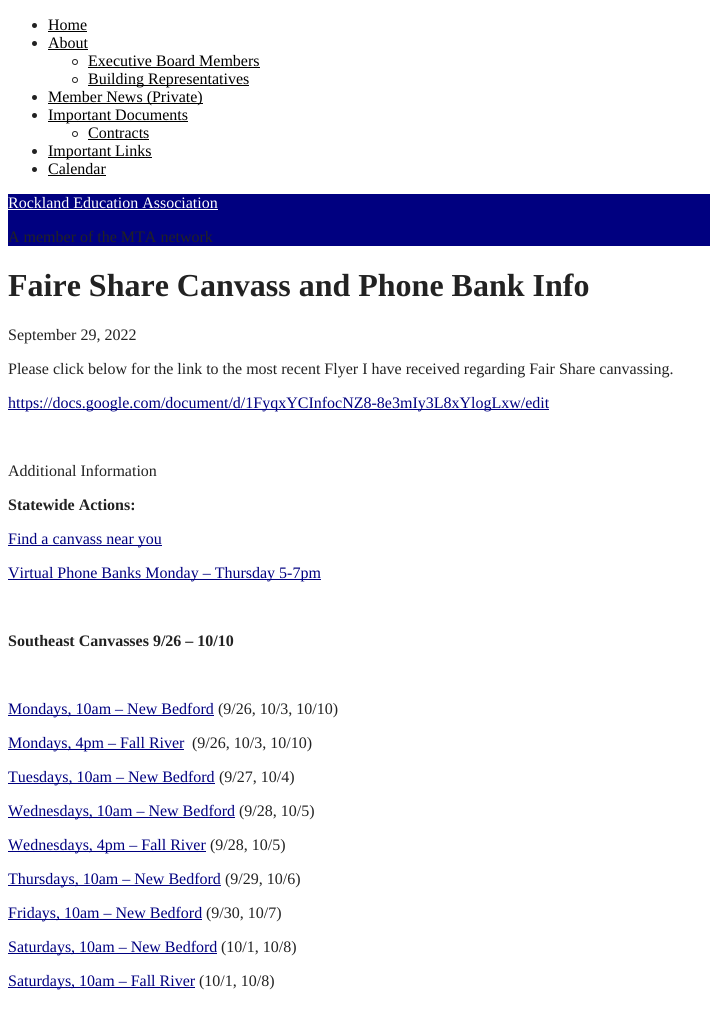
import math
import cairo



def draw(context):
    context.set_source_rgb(1, 1, 1)
    context.paint()
    context.set_source_rgb(34 / 255, 34 / 255, 34 / 255)
    context.arc(34.5, 25.5, 2.5, 0, 2 * math.pi)
    context.fill()
    context.set_source_rgb(0, 0, 0)
    context.rectangle(48, 31, 39, 1)
    context.fill()
    context.set_source_rgb(34 / 255, 34 / 255, 34 / 255)
    context.arc(34.5, 43.5, 2.5, 0, 2 * math.pi)
    context.fill()
    context.set_source_rgb(0, 0, 0)
    context.rectangle(48, 49, 40, 1)
    context.fill()
    context.arc(75, 62, 2.5, 0, 2 * math.pi)
    context.set_source_rgb(34 / 255, 34 / 255, 34 / 255)
    context.set_line_width(1)
    context.stroke()
    context.set_source_rgb(0, 0, 0)
    context.rectangle(88, 67, 172, 1)
    context.fill()
    context.arc(75, 80, 2.5, 0, 2 * math.pi)
    context.set_source_rgb(34 / 255, 34 / 255, 34 / 255)
    context.stroke()
    context.set_source_rgb(0, 0, 0)
    context.rectangle(88, 85, 161, 1)
    context.fill()
    context.set_source_rgb(34 / 255, 34 / 255, 34 / 255)
    context.arc(34.5, 97.5, 2.5, 0, 2 * math.pi)
    context.fill()
    context.set_source_rgb(0, 0, 0)
    context.rectangle(48, 103, 155, 1)
    context.fill()
    context.set_source_rgb(34 / 255, 34 / 255, 34 / 255)
    context.arc(34.5, 115.5, 2.5, 0, 2 * math.pi)
    context.fill()
    context.set_source_rgb(0, 0, 0)
    context.rectangle(48, 121, 140, 1)
    context.fill()
    context.arc(75, 134, 2.5, 0, 2 * math.pi)
    context.set_source_rgb(34 / 255, 34 / 255, 34 / 255)
    context.stroke()
    context.set_source_rgb(0, 0, 0)
    context.rectangle(88, 139, 61, 1)
    context.fill()
    context.set_source_rgb(34 / 255, 34 / 255, 34 / 255)
    context.arc(34.5, 151.5, 2.5, 0, 2 * math.pi)
    context.fill()
    context.set_source_rgb(0, 0, 0)
    context.rectangle(48, 157, 104, 1)
    context.fill()
    context.set_source_rgb(34 / 255, 34 / 255, 34 / 255)
    context.arc(34.5, 169.5, 2.5, 0, 2 * math.pi)
    context.fill()
    context.set_source_rgb(0, 0, 0)
    context.rectangle(48, 175, 58, 1)
    context.fill()
    context.set_source_rgb(0, 0, 128 / 255)
    context.rectangle(8, 194, 702, 52)
    context.fill()
    context.set_source_rgb(1, 1, 1)
    context.rectangle(8, 209, 210, 1)
    context.fill()
    context.set_source_rgb(0, 0, 128 / 255)
    context.rectangle(8, 409, 541, 1)
    context.fill()
    context.rectangle(8, 545, 154, 1)
    context.fill()
    context.rectangle(8, 579, 313, 1)
    context.fill()
    context.rectangle(8, 715, 206, 1)
    context.fill()
    context.rectangle(8, 749, 176, 1)
    context.fill()
    context.rectangle(8, 783, 207, 1)
    context.fill()
    context.rectangle(8, 817, 227, 1)
    context.fill()
    context.rectangle(8, 851, 198, 1)
    context.fill()
    context.rectangle(8, 885, 213, 1)
    context.fill()
    context.rectangle(8, 919, 194, 1)
    context.fill()
    context.rectangle(8, 953, 209, 1)
    context.fill()
    context.rectangle(8, 987, 187, 1)
    context.fill()
    context.select_font_face("Liberation Serif")
    context.set_font_size(16)
    context.set_source_rgb(0, 0, 0)
    context.move_to(48, 30)
    context.show_text("Home")
    context.move_to(48, 48)
    context.show_text("About")
    context.move_to(88, 66)
    context.show_text("Executive Board Members")
    context.move_to(88, 84)
    context.show_text("Building Representatives")
    context.move_to(48, 102)
    context.show_text("Member News (Private)")
    context.move_to(48, 120)
    context.show_text("Important Documents")
    context.move_to(88, 138)
    context.show_text("Contracts")
    context.move_to(48, 156)
    context.show_text("Important Links")
    context.move_to(48, 174)
    context.show_text("Calendar")
    context.set_source_rgb(1, 1, 1)
    context.move_to(8, 208)
    context.show_text("Rockland Education Association")
    context.set_source_rgb(34 / 255, 34 / 255, 34 / 255)
    context.move_to(8, 242)
    context.show_text("A member of the MTA network")
    context.select_font_face("Liberation Serif", cairo.FontSlant.NORMAL, cairo.FontWeight.BOLD)
    context.set_font_size(32)
    context.move_to(8, 296)
    context.show_text("Faire Share Canvass and Phone Bank Info")
    context.select_font_face("Liberation Serif")
    context.set_font_size(16)
    context.move_to(8, 340)
    context.show_text("September 29, 2022")
    context.move_to(8, 374)
    context.show_text("Please click below for the link to the most recent Flyer I have received regarding Fair Share canvassing.")
    context.set_source_rgb(0, 0, 128 / 255)
    context.move_to(8, 408)
    context.show_text("https://docs.google.com/document/d/1FyqxYCInfocNZ8-8e3mIy3L8xYlogLxw/edit")
    context.set_source_rgb(34 / 255, 34 / 255, 34 / 255)
    context.move_to(8, 476)
    context.show_text("Additional Information")
    context.select_font_face("Liberation Serif", cairo.FontSlant.NORMAL, cairo.FontWeight.BOLD)
    context.move_to(8, 510)
    context.show_text("Statewide Actions:")
    context.select_font_face("Liberation Serif")
    context.set_source_rgb(0, 0, 128 / 255)
    context.move_to(8, 544)
    context.show_text("Find a canvass near you")
    context.move_to(8, 578)
    context.show_text("Virtual Phone Banks Monday – Thursday 5-7pm")
    context.select_font_face("Liberation Serif", cairo.FontSlant.NORMAL, cairo.FontWeight.BOLD)
    context.set_source_rgb(34 / 255, 34 / 255, 34 / 255)
    context.move_to(8, 646)
    context.show_text("Southeast Canvasses 9/26 – 10/10")
    context.select_font_face("Liberation Serif")
    context.set_source_rgb(0, 0, 128 / 255)
    context.move_to(8, 714)
    context.show_text("Mondays, 10am – New Bedford")
    context.set_source_rgb(34 / 255, 34 / 255, 34 / 255)
    context.move_to(218, 714)
    context.show_text("(9/26, 10/3, 10/10)")
    context.set_source_rgb(0, 0, 128 / 255)
    context.move_to(8, 748)
    context.show_text("Mondays, 4pm – Fall River")
    context.set_source_rgb(34 / 255, 34 / 255, 34 / 255)
    context.move_to(192, 748)
    context.show_text("(9/26, 10/3, 10/10)")
    context.set_source_rgb(0, 0, 128 / 255)
    context.move_to(8, 782)
    context.show_text("Tuesdays, 10am – New Bedford")
    context.set_source_rgb(34 / 255, 34 / 255, 34 / 255)
    context.move_to(219, 782)
    context.show_text("(9/27, 10/4)")
    context.set_source_rgb(0, 0, 128 / 255)
    context.move_to(8, 816)
    context.show_text("Wednesdays, 10am – New Bedford")
    context.set_source_rgb(34 / 255, 34 / 255, 34 / 255)
    context.move_to(239, 816)
    context.show_text("(9/28, 10/5)")
    context.set_source_rgb(0, 0, 128 / 255)
    context.move_to(8, 850)
    context.show_text("Wednesdays, 4pm – Fall River")
    context.set_source_rgb(34 / 255, 34 / 255, 34 / 255)
    context.move_to(210, 850)
    context.show_text("(9/28, 10/5)")
    context.set_source_rgb(0, 0, 128 / 255)
    context.move_to(8, 884)
    context.show_text("Thursdays, 10am – New Bedford")
    context.set_source_rgb(34 / 255, 34 / 255, 34 / 255)
    context.move_to(225, 884)
    context.show_text("(9/29, 10/6)")
    context.set_source_rgb(0, 0, 128 / 255)
    context.move_to(8, 918)
    context.show_text("Fridays, 10am – New Bedford")
    context.set_source_rgb(34 / 255, 34 / 255, 34 / 255)
    context.move_to(206, 918)
    context.show_text("(9/30, 10/7)")
    context.set_source_rgb(0, 0, 128 / 255)
    context.move_to(8, 952)
    context.show_text("Saturdays, 10am – New Bedford")
    context.set_source_rgb(34 / 255, 34 / 255, 34 / 255)
    context.move_to(221, 952)
    context.show_text("(10/1, 10/8)")
    context.set_source_rgb(0, 0, 128 / 255)
    context.move_to(8, 986)
    context.show_text("Saturdays, 10am – Fall River")
    context.set_source_rgb(34 / 255, 34 / 255, 34 / 255)
    context.move_to(199, 986)
    context.show_text("(10/1, 10/8)")


surface = cairo.ImageSurface(cairo.Format.RGB24, 718, 1014)
context = cairo.Context(surface)
options = cairo.FontOptions()
options.set_hint_metrics(cairo.HintMetrics.OFF)
options.set_hint_style(cairo.HintStyle.NONE)
context.set_font_options(options)
context.set_miter_limit(4)
draw(context)
surface.write_to_png("out.png")
